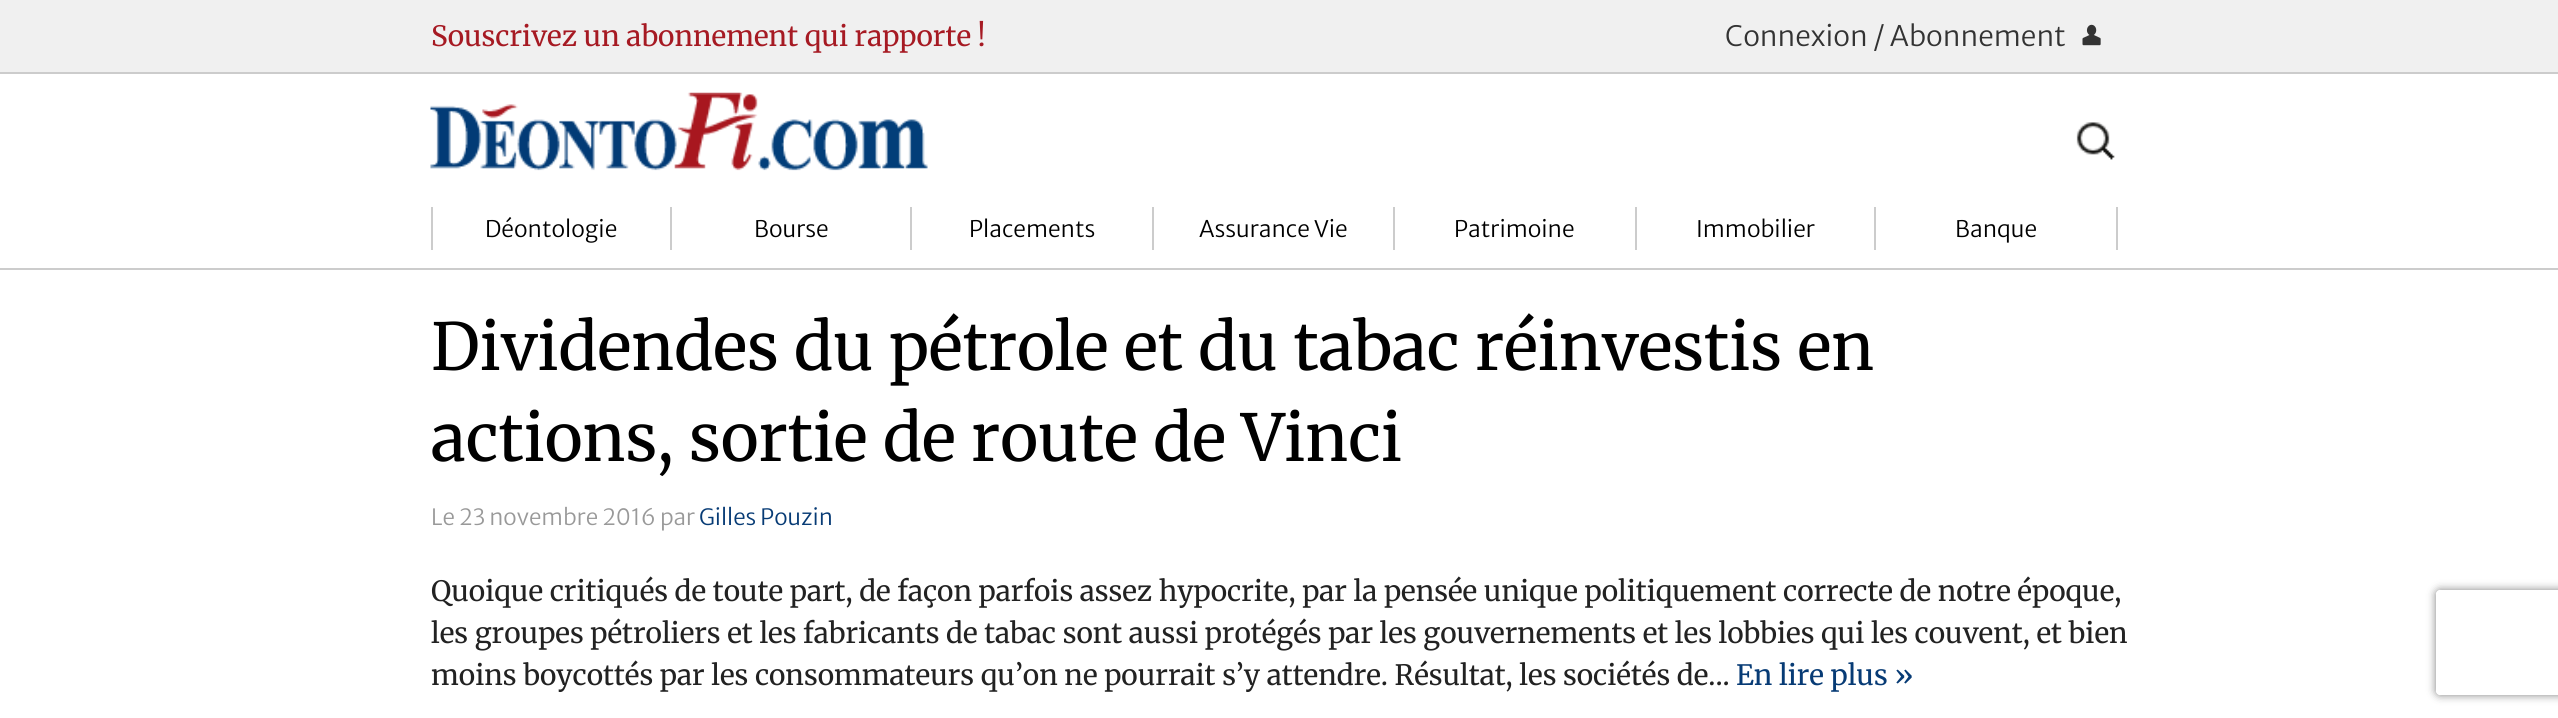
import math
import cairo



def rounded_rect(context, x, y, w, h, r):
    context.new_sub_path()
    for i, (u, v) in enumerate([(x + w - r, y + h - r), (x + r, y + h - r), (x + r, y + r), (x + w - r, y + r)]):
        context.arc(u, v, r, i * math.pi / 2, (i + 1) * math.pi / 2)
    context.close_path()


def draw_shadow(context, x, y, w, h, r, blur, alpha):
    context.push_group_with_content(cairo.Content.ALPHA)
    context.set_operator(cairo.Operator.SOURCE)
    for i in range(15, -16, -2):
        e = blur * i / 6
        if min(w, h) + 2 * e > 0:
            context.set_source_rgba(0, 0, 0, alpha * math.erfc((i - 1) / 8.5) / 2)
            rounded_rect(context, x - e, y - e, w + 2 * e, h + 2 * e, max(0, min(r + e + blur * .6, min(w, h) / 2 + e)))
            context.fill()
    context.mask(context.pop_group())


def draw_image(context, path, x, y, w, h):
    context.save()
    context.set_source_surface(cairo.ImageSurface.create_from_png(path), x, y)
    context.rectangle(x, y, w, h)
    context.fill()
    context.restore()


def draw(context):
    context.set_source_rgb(1, 1, 1)
    context.paint()
    context.set_source_rgb(240 / 255, 240 / 255, 240 / 255)
    context.rectangle(0, 0, 2558, 72)
    context.fill()
    context.set_source_rgb(204 / 255, 204 / 255, 204 / 255)
    context.rectangle(0, 72, 2558, 2)
    context.fill()
    draw_image(context, "images/1.png", 2082, 24, 19, 22)
    context.rectangle(0, 268, 2558, 2)
    context.fill()
    draw_image(context, "images/2.png", 430, 92, 498, 79)
    draw_image(context, "images/3.png", 2076, 122, 39, 38)
    context.rectangle(670, 207, 2, 43)
    context.fill()
    context.rectangle(431, 207, 2, 43)
    context.fill()
    context.rectangle(910, 207, 2, 43)
    context.fill()
    context.rectangle(1152, 207, 2, 43)
    context.fill()
    context.rectangle(1393, 207, 2, 43)
    context.fill()
    context.rectangle(1635, 207, 2, 43)
    context.fill()
    context.rectangle(1874, 207, 2, 43)
    context.fill()
    context.rectangle(2116, 207, 2, 43)
    context.fill()
    context.save()
    context.set_fill_rule(cairo.FillRule.EVEN_ODD)
    context.new_path()
    context.move_to(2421, 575)
    context.line_to(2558, 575)
    context.line_to(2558, 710)
    context.line_to(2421, 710)
    context.close_path()
    context.move_to(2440, 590)
    context.line_to(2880, 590)
    context.curve_to(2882, 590, 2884, 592, 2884, 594)
    context.line_to(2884, 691)
    context.curve_to(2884, 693, 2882, 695, 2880, 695)
    context.line_to(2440, 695)
    context.curve_to(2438, 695, 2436, 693, 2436, 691)
    context.line_to(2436, 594)
    context.curve_to(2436, 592, 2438, 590, 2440, 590)
    context.close_path()
    context.clip()
    context.set_source_rgb(128 / 255, 128 / 255, 128 / 255)
    draw_shadow(context, 2436, 590, 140, 105, 4, 4.5, 1)
    context.restore()
    context.select_font_face("Merriweather")
    context.set_font_size(28)
    context.set_source_rgb(166 / 255, 26 / 255, 35 / 255)
    context.move_to(431, 46)
    context.show_text("Souscrivez un abonnement qui rapporte !")
    context.select_font_face("Merriweather Sans Light")
    context.set_source_rgb(51 / 255, 51 / 255, 51 / 255)
    context.move_to(1725, 46)
    context.show_text("Connexion / Abonnement")
    context.set_font_size(22.75)
    context.set_source_rgb(0, 0, 0)
    context.move_to(485, 237)
    context.show_text("Déontologie")
    context.move_to(754, 237)
    context.show_text("Bourse")
    context.move_to(969, 237)
    context.show_text("Placements")
    context.move_to(1199, 237)
    context.show_text("Assurance Vie")
    context.move_to(1454, 237)
    context.show_text("Patrimoine")
    context.move_to(1696, 237)
    context.show_text("Immobilier")
    context.move_to(1955, 237)
    context.show_text("Banque")
    context.select_font_face("Merriweather")
    context.set_font_size(64.75)
    context.move_to(431, 370)
    context.show_text("Dividendes du pétrole et du tabac réinvestis en")
    context.move_to(431, 461)
    context.show_text("actions, sortie de route de Vinci")
    context.select_font_face("Merriweather Sans Light")
    context.set_font_size(22.4)
    context.set_source_rgb(153 / 255, 153 / 255, 153 / 255)
    context.move_to(431, 525)
    context.show_text("Le 23 novembre 2016 par")
    context.set_source_rgb(7 / 255, 59 / 255, 117 / 255)
    context.move_to(699, 525)
    context.show_text("Gilles Pouzin")
    context.select_font_face("Merriweather")
    context.set_font_size(28)
    context.set_source_rgb(34 / 255, 34 / 255, 34 / 255)
    context.move_to(431, 601)
    context.show_text("Quoique critiqués de toute part, de façon parfois assez hypocrite, par la pensée unique politiquement correcte de notre époque,")
    context.move_to(431, 643)
    context.show_text("les groupes pétroliers et les fabricants de tabac sont aussi protégés par les gouvernements et les lobbies qui les couvent, et bien")
    context.move_to(431, 685)
    context.show_text("moins boycottés par les consommateurs qu’on ne pourrait s’y attendre. Résultat, les sociétés de...")
    context.set_source_rgb(7 / 255, 59 / 255, 117 / 255)
    context.move_to(1736, 685)
    context.show_text("En lire plus »")


surface = cairo.ImageSurface(cairo.Format.RGB24, 2558, 718)
context = cairo.Context(surface)
options = cairo.FontOptions()
options.set_hint_metrics(cairo.HintMetrics.OFF)
options.set_hint_style(cairo.HintStyle.NONE)
context.set_font_options(options)
context.set_miter_limit(4)
draw(context)
surface.write_to_png("out.png")
